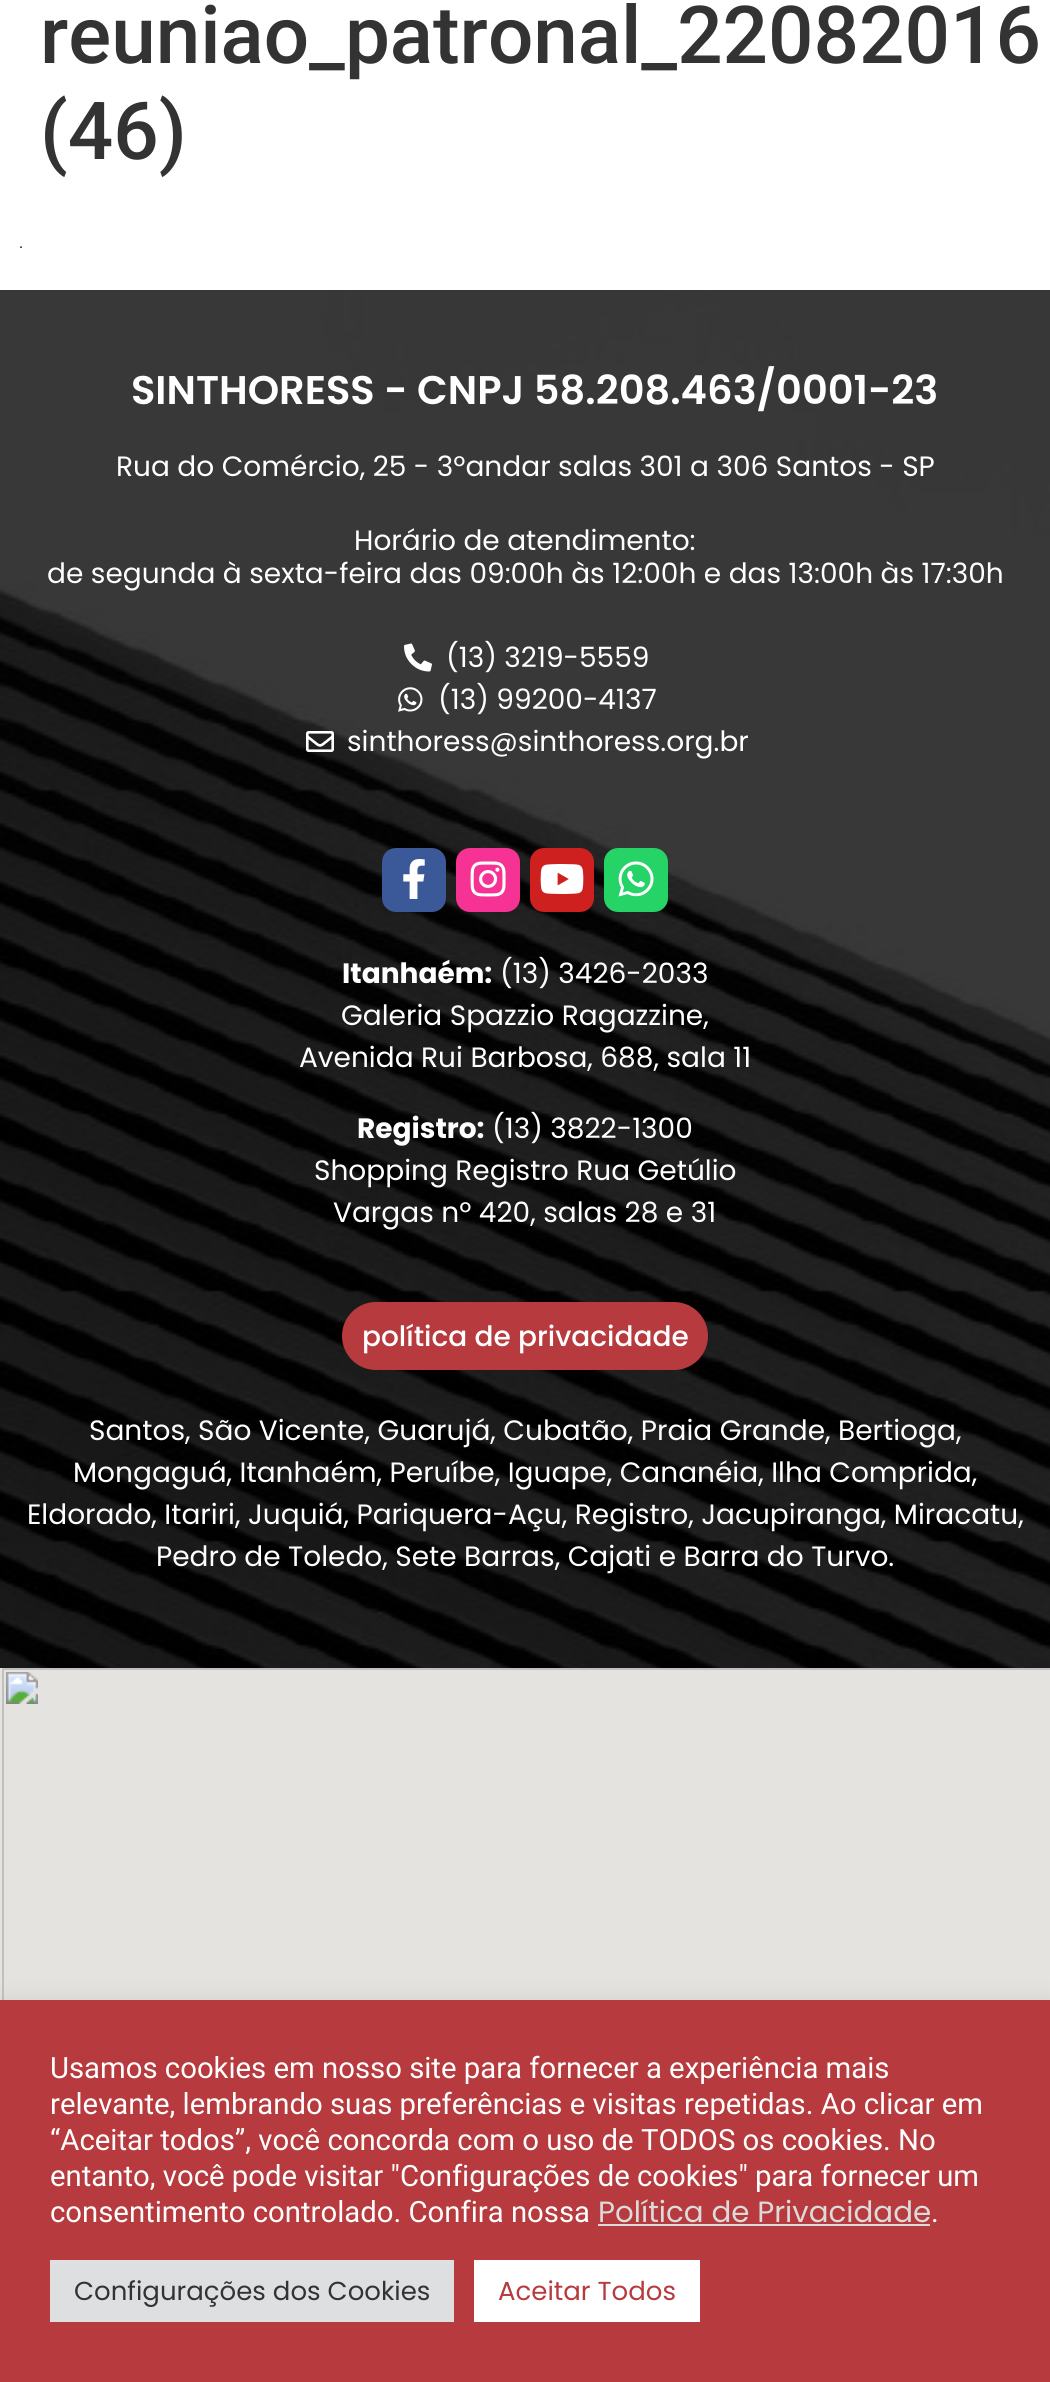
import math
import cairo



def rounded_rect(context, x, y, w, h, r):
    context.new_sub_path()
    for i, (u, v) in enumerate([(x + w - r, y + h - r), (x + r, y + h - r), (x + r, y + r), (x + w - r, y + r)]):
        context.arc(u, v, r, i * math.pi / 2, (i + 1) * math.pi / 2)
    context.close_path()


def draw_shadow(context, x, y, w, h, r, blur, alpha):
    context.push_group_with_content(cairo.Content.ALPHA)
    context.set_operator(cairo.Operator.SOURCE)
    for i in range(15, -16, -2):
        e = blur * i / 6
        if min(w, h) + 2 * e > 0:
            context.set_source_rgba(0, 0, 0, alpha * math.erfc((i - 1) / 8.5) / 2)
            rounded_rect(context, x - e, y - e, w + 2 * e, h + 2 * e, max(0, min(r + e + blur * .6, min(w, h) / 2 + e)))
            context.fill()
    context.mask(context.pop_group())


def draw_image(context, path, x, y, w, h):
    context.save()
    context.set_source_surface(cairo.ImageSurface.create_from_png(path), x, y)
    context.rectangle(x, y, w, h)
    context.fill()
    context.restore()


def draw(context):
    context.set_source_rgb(1, 1, 1)
    context.paint()
    draw_image(context, "images/1.png", 20, 246, 2, 2)
    draw_image(context, "images/2.png", 0, 290, 1050, 1378)
    draw_image(context, "images/3.png", 404, 643, 28, 29)
    draw_image(context, "images/4.png", 398, 687, 25, 25)
    draw_image(context, "images/5.png", 306, 731, 28, 21)
    context.set_source_rgb(59 / 255, 89 / 255, 152 / 255)
    rounded_rect(context, 382, 848, 64, 64, 14)
    context.fill()
    draw_image(context, "images/6.png", 403, 859, 22, 40)
    context.set_source_rgb(246 / 255, 51 / 255, 149 / 255)
    rounded_rect(context, 456, 848, 64, 64, 14)
    context.fill()
    draw_image(context, "images/7.png", 470, 861, 36, 36)
    context.set_source_rgb(205 / 255, 32 / 255, 31 / 255)
    rounded_rect(context, 530, 848, 64, 64, 14)
    context.fill()
    draw_image(context, "images/8.png", 540, 864, 44, 30)
    context.set_source_rgb(37 / 255, 211 / 255, 102 / 255)
    rounded_rect(context, 604, 848, 64, 64, 14)
    context.fill()
    draw_image(context, "images/9.png", 618, 861, 36, 36)
    context.set_source_rgb(183 / 255, 58 / 255, 62 / 255)
    rounded_rect(context, 342, 1302, 366, 68, 34)
    context.fill()
    draw_image(context, "images/10.png", 0, 1668, 1050, 332)
    context.set_source_rgb(172 / 255, 171 / 255, 171 / 255)
    draw_shadow(context, 0, 1998, 1050, 382, 0, 10, 0.3)
    context.set_source_rgb(183 / 255, 58 / 255, 62 / 255)
    context.rectangle(0, 2000, 1050, 382)
    context.fill()
    context.set_source_rgb(219 / 255, 219 / 255, 219 / 255)
    context.rectangle(598, 2224, 332, 2)
    context.fill()
    context.set_source_rgb(222 / 255, 223 / 255, 224 / 255)
    context.rectangle(50, 2260, 404, 62)
    context.fill()
    context.set_source_rgb(1, 1, 1)
    context.rectangle(474, 2260, 226, 62)
    context.fill()
    context.select_font_face("Roboto Medium")
    context.set_font_size(80)
    context.set_source_rgb(51 / 255, 51 / 255, 51 / 255)
    context.move_to(40, 63)
    context.show_text("reuniao_patronal_22082016")
    context.move_to(40, 159)
    context.show_text("(46)")
    context.select_font_face("Poppins SemiBold")
    context.set_font_size(40)
    context.set_source_rgb(1, 1, 1)
    context.move_to(131, 404)
    context.show_text("SINTHORESS - CNPJ 58.208.463/0001-23")
    context.select_font_face("Poppins")
    context.set_font_size(28)
    context.move_to(116, 476)
    context.show_text("Rua do Comércio, 25 - 3ºandar salas 301 a 306 Santos - SP")
    context.move_to(354, 550)
    context.show_text("Horário de atendimento:")
    context.move_to(47, 583)
    context.show_text("de segunda à sexta-feira das 09:00h às 12:00h e das 13:00h às 17:30h")
    context.move_to(446, 667)
    context.show_text("(13) 3219-5559")
    context.move_to(438, 709)
    context.show_text("(13) 99200-4137")
    context.move_to(347, 751)
    context.show_text("sinthoress@sinthoress.org.br")
    context.select_font_face("Poppins", cairo.FontSlant.NORMAL, cairo.FontWeight.BOLD)
    context.move_to(342, 983)
    context.show_text("Itanhaém:")
    context.select_font_face("Poppins")
    context.move_to(500, 983)
    context.show_text("(13) 3426-2033")
    context.move_to(341, 1025)
    context.show_text("Galeria Spazzio Ragazzine,")
    context.move_to(299, 1067)
    context.show_text("Avenida Rui Barbosa, 688, sala 11")
    context.select_font_face("Poppins", cairo.FontSlant.NORMAL, cairo.FontWeight.BOLD)
    context.move_to(357, 1138)
    context.show_text("Registro:")
    context.select_font_face("Poppins")
    context.move_to(492, 1138)
    context.show_text("(13) 3822-1300")
    context.move_to(314, 1180)
    context.show_text("Shopping Registro Rua Getúlio")
    context.move_to(333, 1222)
    context.show_text("Vargas nº 420, salas 28 e 31")
    context.select_font_face("Poppins Medium")
    context.move_to(362, 1346)
    context.show_text("política de privacidade")
    context.select_font_face("Poppins")
    context.move_to(89, 1440)
    context.show_text("Santos, São Vicente, Guarujá, Cubatão, Praia Grande, Bertioga,")
    context.move_to(73, 1482)
    context.show_text("Mongaguá, Itanhaém, Peruíbe, Iguape, Cananéia, Ilha Comprida,")
    context.move_to(27, 1524)
    context.show_text("Eldorado, Itariri, Juquiá, Pariquera-Açu, Registro, Jacupiranga, Miracatu,")
    context.move_to(156, 1566)
    context.show_text("Pedro de Toledo, Sete Barras, Cajati e Barra do Turvo.")
    context.select_font_face("Roboto")
    context.set_font_size(29.3)
    context.move_to(50, 2078)
    context.show_text("Usamos cookies em nosso site para fornecer a experiência mais")
    context.move_to(50, 2114)
    context.show_text("relevante, lembrando suas preferências e visitas repetidas. Ao clicar em")
    context.move_to(50, 2150)
    context.show_text("“Aceitar todos”, você concorda com o uso de TODOS os cookies. No")
    context.move_to(50, 2186)
    context.show_text("entanto, você pode visitar \"Configurações de cookies\" para fornecer um")
    context.move_to(50, 2222)
    context.show_text("consentimento controlado. Confira nossa")
    context.select_font_face("Poppins")
    context.set_source_rgb(219 / 255, 219 / 255, 219 / 255)
    context.move_to(598, 2222)
    context.show_text("Política de Privacidade")
    context.select_font_face("Roboto")
    context.set_source_rgb(1, 1, 1)
    context.move_to(931, 2222)
    context.show_text(".")
    context.select_font_face("Poppins")
    context.set_font_size(26)
    context.set_source_rgb(51 / 255, 51 / 255, 51 / 255)
    context.move_to(74, 2300)
    context.show_text("Configurações dos Cookies")
    context.set_source_rgb(183 / 255, 58 / 255, 62 / 255)
    context.move_to(498, 2300)
    context.show_text("Aceitar Todos")


surface = cairo.ImageSurface(cairo.Format.RGB24, 1050, 2382)
context = cairo.Context(surface)
options = cairo.FontOptions()
options.set_hint_metrics(cairo.HintMetrics.OFF)
options.set_hint_style(cairo.HintStyle.NONE)
context.set_font_options(options)
context.set_miter_limit(4)
draw(context)
surface.write_to_png("out.png")
